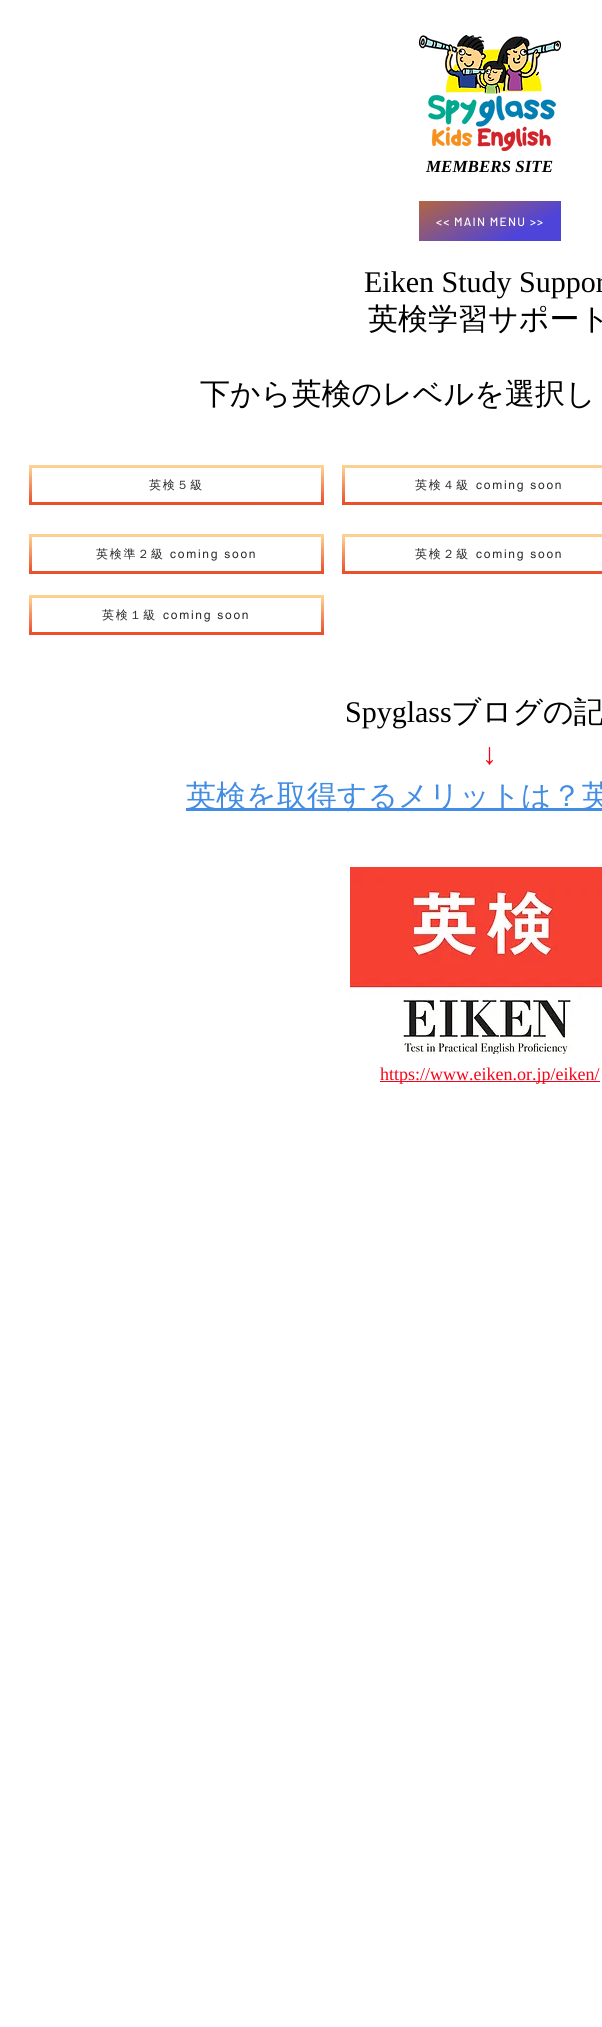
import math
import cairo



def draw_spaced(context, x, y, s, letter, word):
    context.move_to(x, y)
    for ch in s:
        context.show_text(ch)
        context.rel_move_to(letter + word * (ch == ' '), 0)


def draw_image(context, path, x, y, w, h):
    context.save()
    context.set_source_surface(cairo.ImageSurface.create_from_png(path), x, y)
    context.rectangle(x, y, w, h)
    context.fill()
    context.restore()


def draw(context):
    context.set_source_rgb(1, 1, 1)
    context.paint()
    draw_image(context, "images/1.png", 419, 35, 142, 116)
    gradient = cairo.LinearGradient(513, 266, 467, 176)
    gradient.add_color_stop_rgba(0.26, 79 / 255, 68 / 255, 218 / 255, 1)
    gradient.add_color_stop_rgba(1, 180 / 255, 102 / 255, 64 / 255, 1)
    context.set_source(gradient)
    context.rectangle(419, 201, 142, 40)
    context.fill()
    draw_image(context, "images/2.png", 29, 465, 295, 40)
    draw_image(context, "images/3.png", 342, 465, 260, 40)
    draw_image(context, "images/4.png", 29, 534, 295, 40)
    draw_image(context, "images/5.png", 342, 534, 260, 40)
    draw_image(context, "images/6.png", 29, 595, 295, 40)
    context.set_source_rgb(66 / 255, 141 / 255, 227 / 255)
    context.rectangle(186, 808, 416, 3)
    context.fill()
    draw_image(context, "images/7.png", 350, 867, 252, 187)
    context.set_source_rgb(246 / 255, 4 / 255, 25 / 255)
    context.rectangle(380, 1081, 220, 1)
    context.fill()
    context.select_font_face("Liberation Serif", cairo.FontSlant.ITALIC, cairo.FontWeight.BOLD)
    context.set_font_size(17)
    context.set_source_rgb(0, 0, 0)
    context.move_to(426, 172)
    context.show_text("MEMBERS SITE")
    context.select_font_face("Barlow Medium")
    context.set_font_size(12)
    context.set_source_rgb(1, 1, 1)
    draw_spaced(context, 436, 226, "<< MAIN MENU >>", 1.25, 0)
    context.select_font_face("Liberation Serif")
    context.set_font_size(30)
    context.set_source_rgb(0, 0, 0)
    context.move_to(364, 292)
    context.show_text("Eiken Study Suppor")
    context.select_font_face("WenQuanYi Zen Hei Medium")
    context.move_to(368, 329)
    context.show_text("英検学習サポート")
    context.move_to(200, 404)
    context.show_text("下から英検のレベルを選択し")
    context.set_font_size(12)
    context.set_source_rgb(41 / 255, 41 / 255, 41 / 255)
    draw_spaced(context, 149, 489, "英検５級", 1.75, 0)
    draw_spaced(context, 415, 489, "英検４級", 1.75, 0)
    context.select_font_face("helvetica")
    draw_spaced(context, 476, 489, "coming soon", 1.75, 0)
    context.select_font_face("WenQuanYi Zen Hei Medium")
    draw_spaced(context, 96, 558, "英検準２級", 1.75, 0)
    context.select_font_face("helvetica")
    draw_spaced(context, 170, 558, "coming soon", 1.75, 0)
    context.select_font_face("WenQuanYi Zen Hei Medium")
    draw_spaced(context, 415, 558, "英検２級", 1.75, 0)
    context.select_font_face("helvetica")
    draw_spaced(context, 476, 558, "coming soon", 1.75, 0)
    context.select_font_face("WenQuanYi Zen Hei Medium")
    draw_spaced(context, 102, 619, "英検１級", 1.75, 0)
    context.select_font_face("helvetica")
    draw_spaced(context, 163, 619, "coming soon", 1.75, 0)
    context.select_font_face("Liberation Serif")
    context.set_font_size(30)
    context.set_source_rgb(0, 0, 0)
    context.move_to(345, 722)
    context.show_text("Spyglass")
    context.select_font_face("WenQuanYi Zen Hei Medium")
    context.move_to(451, 722)
    context.show_text("ブログの記")
    context.select_font_face("Liberation Serif", cairo.FontSlant.NORMAL, cairo.FontWeight.BOLD)
    context.set_source_rgb(246 / 255, 4 / 255, 25 / 255)
    context.move_to(482, 764)
    context.show_text("↓")
    context.select_font_face("WenQuanYi Zen Hei Medium")
    context.set_source_rgb(66 / 255, 141 / 255, 227 / 255)
    context.move_to(186, 806)
    context.show_text("英検を取得するメリットは？英")
    context.select_font_face("Liberation Serif")
    context.set_font_size(18)
    context.set_source_rgb(246 / 255, 4 / 255, 25 / 255)
    context.move_to(380, 1080)
    context.show_text("https://www.eiken.or.jp/eiken/")


surface = cairo.ImageSurface(cairo.Format.RGB24, 602, 2027)
context = cairo.Context(surface)
options = cairo.FontOptions()
options.set_hint_metrics(cairo.HintMetrics.OFF)
options.set_hint_style(cairo.HintStyle.NONE)
context.set_font_options(options)
context.set_miter_limit(4)
draw(context)
surface.write_to_png("out.png")
